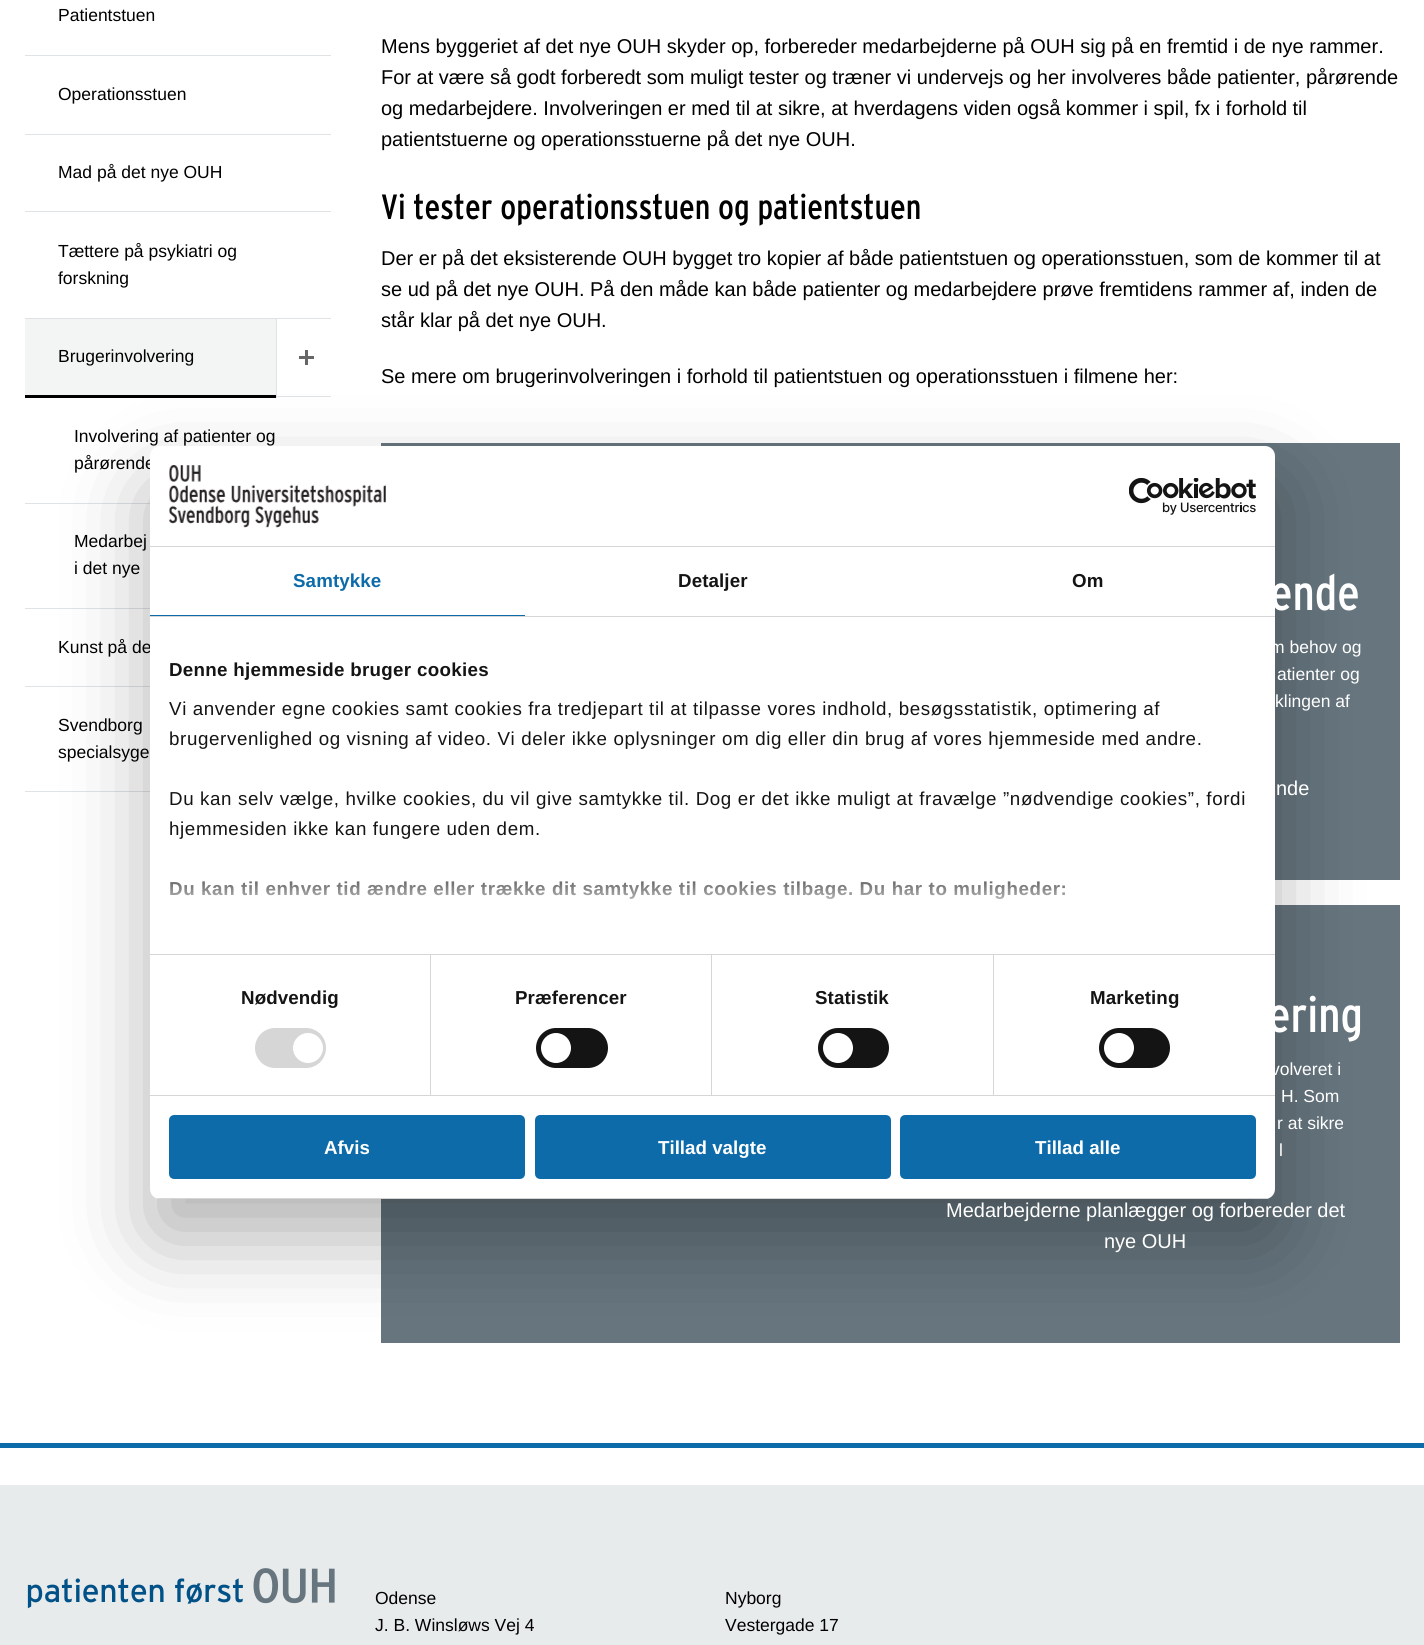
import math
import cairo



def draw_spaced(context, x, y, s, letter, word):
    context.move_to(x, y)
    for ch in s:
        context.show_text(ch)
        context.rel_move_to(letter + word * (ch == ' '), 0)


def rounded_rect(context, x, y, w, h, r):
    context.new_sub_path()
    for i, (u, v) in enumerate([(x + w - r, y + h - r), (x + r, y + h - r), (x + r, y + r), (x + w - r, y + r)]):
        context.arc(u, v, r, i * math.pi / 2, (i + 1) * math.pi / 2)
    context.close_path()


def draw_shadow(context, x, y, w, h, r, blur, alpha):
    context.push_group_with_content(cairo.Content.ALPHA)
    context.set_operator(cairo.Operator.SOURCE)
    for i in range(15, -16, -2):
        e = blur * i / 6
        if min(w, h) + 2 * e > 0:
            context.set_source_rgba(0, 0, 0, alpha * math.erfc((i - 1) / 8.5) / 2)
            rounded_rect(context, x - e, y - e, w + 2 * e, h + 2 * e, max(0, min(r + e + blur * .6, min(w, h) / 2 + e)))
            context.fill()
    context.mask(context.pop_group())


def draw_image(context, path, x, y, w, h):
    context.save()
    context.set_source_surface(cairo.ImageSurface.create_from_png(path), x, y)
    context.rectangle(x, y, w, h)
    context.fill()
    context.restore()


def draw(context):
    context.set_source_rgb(1, 1, 1)
    context.paint()
    context.set_source_rgb(224 / 255, 227 / 255, 229 / 255)
    context.rectangle(25, 55, 306, 1)
    context.fill()
    context.rectangle(25, 134, 306, 1)
    context.fill()
    context.rectangle(25, 211, 306, 1)
    context.fill()
    context.rectangle(25, 318, 306, 1)
    context.fill()
    context.set_source_rgb(243 / 255, 245 / 255, 245 / 255)
    context.rectangle(25, 319, 251, 76)
    context.fill()
    context.set_source_rgb(0, 0, 0)
    context.rectangle(25, 395, 251, 3)
    context.fill()
    context.set_source_rgb(224 / 255, 227 / 255, 229 / 255)
    context.rectangle(276, 396, 55, 1)
    context.fill()
    context.rectangle(276, 319, 1, 79)
    context.fill()
    context.set_source_rgb(102 / 255, 102 / 255, 102 / 255)
    context.rectangle(305, 350, 3, 15)
    context.fill()
    context.rectangle(299, 356, 15, 3)
    context.fill()
    context.set_source_rgb(224 / 255, 227 / 255, 229 / 255)
    context.rectangle(25, 503, 125, 1)
    context.fill()
    context.rectangle(25, 608, 125, 1)
    context.fill()
    context.rectangle(25, 686, 125, 1)
    context.fill()
    context.rectangle(25, 791, 125, 1)
    context.fill()
    context.set_source_rgb(102 / 255, 117 / 255, 126 / 255)
    context.rectangle(381, 443, 1019, 437)
    context.fill()
    context.rectangle(381, 905, 1019, 438)
    context.fill()
    context.set_source_rgb(0, 0, 0)
    draw_shadow(context, 150, 486, 1125, 753, 10, 42.5, 0.3)
    context.set_source_rgb(13 / 255, 107 / 255, 170 / 255)
    context.rectangle(0, 1443, 1424, 5)
    context.fill()
    context.set_source_rgb(232 / 255, 235 / 255, 236 / 255)
    context.rectangle(0, 1485, 1424, 160)
    context.fill()
    draw_image(context, "images/3.png", 27, 1568, 308, 41)
    context.select_font_face("Liberation Sans")
    context.set_font_size(17.5)
    context.set_source_rgb(0, 0, 0)
    context.move_to(58, 21)
    context.show_text("Patientstuen")
    context.move_to(58, 100)
    context.show_text("Operationsstuen")
    context.move_to(58, 178)
    context.show_text("Mad på det nye OUH")
    context.move_to(58, 257)
    context.show_text("Tættere på psykiatri og")
    context.move_to(58, 284)
    context.show_text("forskning")
    context.move_to(58, 362)
    context.show_text("Brugerinvolvering")
    context.move_to(74, 442)
    context.show_text("Involvering af patienter og")
    context.move_to(74, 469)
    context.show_text("pårørende")
    context.move_to(74, 547)
    context.show_text("Medarbej")
    context.move_to(74, 574)
    context.show_text("i det nye")
    context.move_to(58, 653)
    context.show_text("Kunst på de")
    context.move_to(58, 731)
    context.show_text("Svendborg")
    context.move_to(58, 758)
    context.show_text("specialsyge")
    context.set_font_size(20)
    context.move_to(381, 53)
    context.show_text("Mens byggeriet af det nye OUH skyder op, forbereder medarbejderne på OUH sig på en fremtid i de nye rammer.")
    context.move_to(381, 84)
    context.show_text("For at være så godt forberedt som muligt tester og træner vi undervejs og her involveres både patienter, pårørende")
    context.move_to(381, 115)
    context.show_text("og medarbejdere. Involveringen er med til at sikre, at hverdagens viden også kommer i spil, fx i forhold til")
    context.move_to(381, 146)
    context.show_text("patientstuerne og operationsstuerne på det nye OUH.")
    context.select_font_face("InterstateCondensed")
    context.set_font_size(35)
    context.move_to(381, 219)
    context.show_text("Vi tester operationsstuen og patientstuen")
    context.select_font_face("Liberation Sans")
    context.set_font_size(20)
    context.move_to(381, 265)
    context.show_text("Der er på det eksisterende OUH bygget tro kopier af både patientstuen og operationsstuen, som de kommer til at")
    context.move_to(381, 296)
    context.show_text("se ud på det nye OUH. På den måde kan både patienter og medarbejdere prøve fremtidens rammer af, inden de")
    context.move_to(381, 327)
    context.show_text("står klar på det nye OUH.")
    context.move_to(381, 383)
    context.show_text("Se mere om brugerinvolveringen i forhold til patientstuen og operationsstuen i filmene her:")
    context.select_font_face("InterstateCondensed")
    context.set_font_size(50)
    context.set_source_rgb(1, 1, 1)
    context.move_to(1270, 610)
    context.show_text("ende")
    context.select_font_face("Liberation Sans")
    context.set_font_size(17.5)
    context.move_to(1270, 653)
    context.show_text("m behov og")
    context.move_to(1277, 680)
    context.show_text("atienter og")
    context.move_to(1275, 707)
    context.show_text("klingen af")
    context.set_font_size(20)
    context.move_to(1276, 795)
    context.show_text("nde")
    context.select_font_face("InterstateCondensed")
    context.set_font_size(50)
    context.move_to(1268, 1032)
    context.show_text("ering")
    context.select_font_face("Liberation Sans")
    context.set_font_size(17.5)
    context.move_to(1271, 1075)
    context.show_text("volveret i")
    context.move_to(1281, 1102)
    context.show_text("H. Som")
    context.move_to(1277, 1129)
    context.show_text("r at sikre")
    context.move_to(1279, 1156)
    context.show_text("l")
    context.set_font_size(20)
    context.move_to(946, 1217)
    context.show_text("Medarbejderne planlægger og forbereder det")
    context.move_to(1104, 1248)
    context.show_text("nye OUH")
    rounded_rect(context, 150, 446, 1125, 753, 10)
    context.fill()
    context.set_source_rgb(214 / 255, 214 / 255, 214 / 255)
    context.rectangle(150, 546, 1125, 1)
    context.fill()
    draw_image(context, "images/1.png", 169, 465, 217, 63)
    draw_image(context, "images/2.png", 1129, 478, 127, 37)
    context.rectangle(150, 616, 1125, 1)
    context.fill()
    context.set_source_rgb(13 / 255, 107 / 255, 170 / 255)
    context.rectangle(150, 615, 375, 1)
    context.fill()
    context.select_font_face("Liberation Sans", cairo.FontSlant.NORMAL, cairo.FontWeight.BOLD)
    context.set_font_size(18.75)
    draw_spaced(context, 293, 587, "Samtykke", 0.1, 0)
    context.set_source_rgb(20 / 255, 20 / 255, 20 / 255)
    draw_spaced(context, 678, 587, "Detaljer", 0.1, 0)
    draw_spaced(context, 1072, 587, "Om", 0.1, 0)
    context.set_source_rgb(214 / 255, 214 / 255, 214 / 255)
    context.rectangle(150, 954, 1125, 1)
    context.fill()
    context.set_source_rgb(20 / 255, 20 / 255, 20 / 255)
    draw_spaced(context, 169, 676, "Denne hjemmeside bruger cookies", 0.3, 0)
    context.select_font_face("Liberation Sans")
    draw_spaced(context, 169, 715, "Vi anvender egne cookies samt cookies fra tredjepart til at tilpasse vores indhold, besøgsstatistik, optimering af", 0.62, 0)
    draw_spaced(context, 169, 745, "brugervenlighed og visning af video. Vi deler ikke oplysninger om dig eller din brug af vores hjemmeside med andre.", 0.62, 0)
    draw_spaced(context, 169, 805, "Du kan selv vælge, hvilke cookies, du vil give samtykke til. Dog er det ikke muligt at fravælge ”nødvendige cookies”, fordi", 0.62, 0)
    draw_spaced(context, 169, 835, "hjemmesiden ikke kan fungere uden dem.", 0.62, 0)
    context.select_font_face("Liberation Sans", cairo.FontSlant.NORMAL, cairo.FontWeight.BOLD)
    draw_spaced(context, 169, 895, "Du kan til enhver tid ændre eller trække dit samtykke til cookies tilbage. Du har to muligheder:", 0.62, 0)
    gradient = cairo.LinearGradient(704, 954, 704, 860)
    gradient.add_color_stop_rgba(0, 1, 1, 1, 1)
    gradient.add_color_stop_rgba(0.5, 1, 1, 1, 0.8)
    gradient.add_color_stop_rgba(1, 1, 1, 1, 0)
    context.set_source(gradient)
    context.rectangle(170, 881, 896, 18)
    context.fill()
    context.set_source_rgb(214 / 255, 214 / 255, 214 / 255)
    context.rectangle(150, 1095, 1125, 1)
    context.fill()
    context.rectangle(430, 955, 1, 140)
    context.fill()
    context.set_source_rgb(20 / 255, 20 / 255, 20 / 255)
    draw_spaced(context, 241, 1004, "Nødvendig", 0.1, 0)
    context.set_source_rgb(214 / 255, 214 / 255, 214 / 255)
    rounded_rect(context, 255, 1028, 71, 40, 20)
    context.fill()
    context.set_source_rgb(1, 1, 1)
    context.arc(308, 1048, 15, 0, 2 * math.pi)
    context.fill()
    context.set_source_rgb(214 / 255, 214 / 255, 214 / 255)
    context.rectangle(711, 955, 1, 140)
    context.fill()
    context.set_source_rgb(20 / 255, 20 / 255, 20 / 255)
    draw_spaced(context, 515, 1004, "Præferencer", 0.1, 0)
    rounded_rect(context, 536, 1028, 72, 40, 20)
    context.fill()
    context.set_source_rgb(1, 1, 1)
    context.arc(556, 1048, 15, 0, 2 * math.pi)
    context.fill()
    context.set_source_rgb(214 / 255, 214 / 255, 214 / 255)
    context.rectangle(993, 955, 1, 140)
    context.fill()
    context.set_source_rgb(20 / 255, 20 / 255, 20 / 255)
    draw_spaced(context, 815, 1004, "Statistik", 0.1, 0)
    rounded_rect(context, 818, 1028, 71, 40, 20)
    context.fill()
    context.set_source_rgb(1, 1, 1)
    context.arc(838, 1048, 15, 0, 2 * math.pi)
    context.fill()
    context.set_source_rgb(20 / 255, 20 / 255, 20 / 255)
    draw_spaced(context, 1090, 1004, "Marketing", 0.1, 0)
    rounded_rect(context, 1099, 1028, 71, 40, 20)
    context.fill()
    context.set_source_rgb(1, 1, 1)
    context.arc(1119, 1048, 15, 0, 2 * math.pi)
    context.fill()
    context.save()
    rounded_rect(context, 150, 446, 1125, 753, 10)
    context.clip()
    context.set_source_rgb(214 / 255, 214 / 255, 214 / 255)
    context.rectangle(150, 1198, 1125, 1)
    context.fill()
    context.restore()
    context.set_source_rgb(13 / 255, 107 / 255, 170 / 255)
    rounded_rect(context, 170.5, 1116.5, 353, 61, 3.5)
    context.fill_preserve()
    context.set_line_width(3)
    context.stroke()
    context.set_source_rgb(1, 1, 1)
    context.move_to(324, 1154)
    context.show_text("Afvis")
    context.set_source_rgb(13 / 255, 107 / 255, 170 / 255)
    rounded_rect(context, 536.5, 1116.5, 353, 61, 3.5)
    context.fill_preserve()
    context.stroke()
    context.set_source_rgb(1, 1, 1)
    context.move_to(658, 1154)
    context.show_text("Tillad valgte")
    context.set_source_rgb(13 / 255, 107 / 255, 170 / 255)
    rounded_rect(context, 901.5, 1116.5, 353, 61, 3.5)
    context.fill_preserve()
    context.stroke()
    context.set_source_rgb(1, 1, 1)
    context.move_to(1035, 1154)
    context.show_text("Tillad alle")
    context.select_font_face("Liberation Sans")
    context.set_font_size(17.5)
    context.set_source_rgb(0, 0, 0)
    context.move_to(375, 1604)
    context.show_text("Odense")
    context.move_to(375, 1631)
    context.show_text("J. B. Winsløws Vej 4")
    context.move_to(725, 1604)
    context.show_text("Nyborg")
    context.move_to(725, 1631)
    context.show_text("Vestergade 17")


surface = cairo.ImageSurface(cairo.Format.RGB24, 1424, 1645)
context = cairo.Context(surface)
options = cairo.FontOptions()
options.set_hint_metrics(cairo.HintMetrics.OFF)
options.set_hint_style(cairo.HintStyle.NONE)
context.set_font_options(options)
context.set_miter_limit(4)
draw(context)
surface.write_to_png("out.png")
